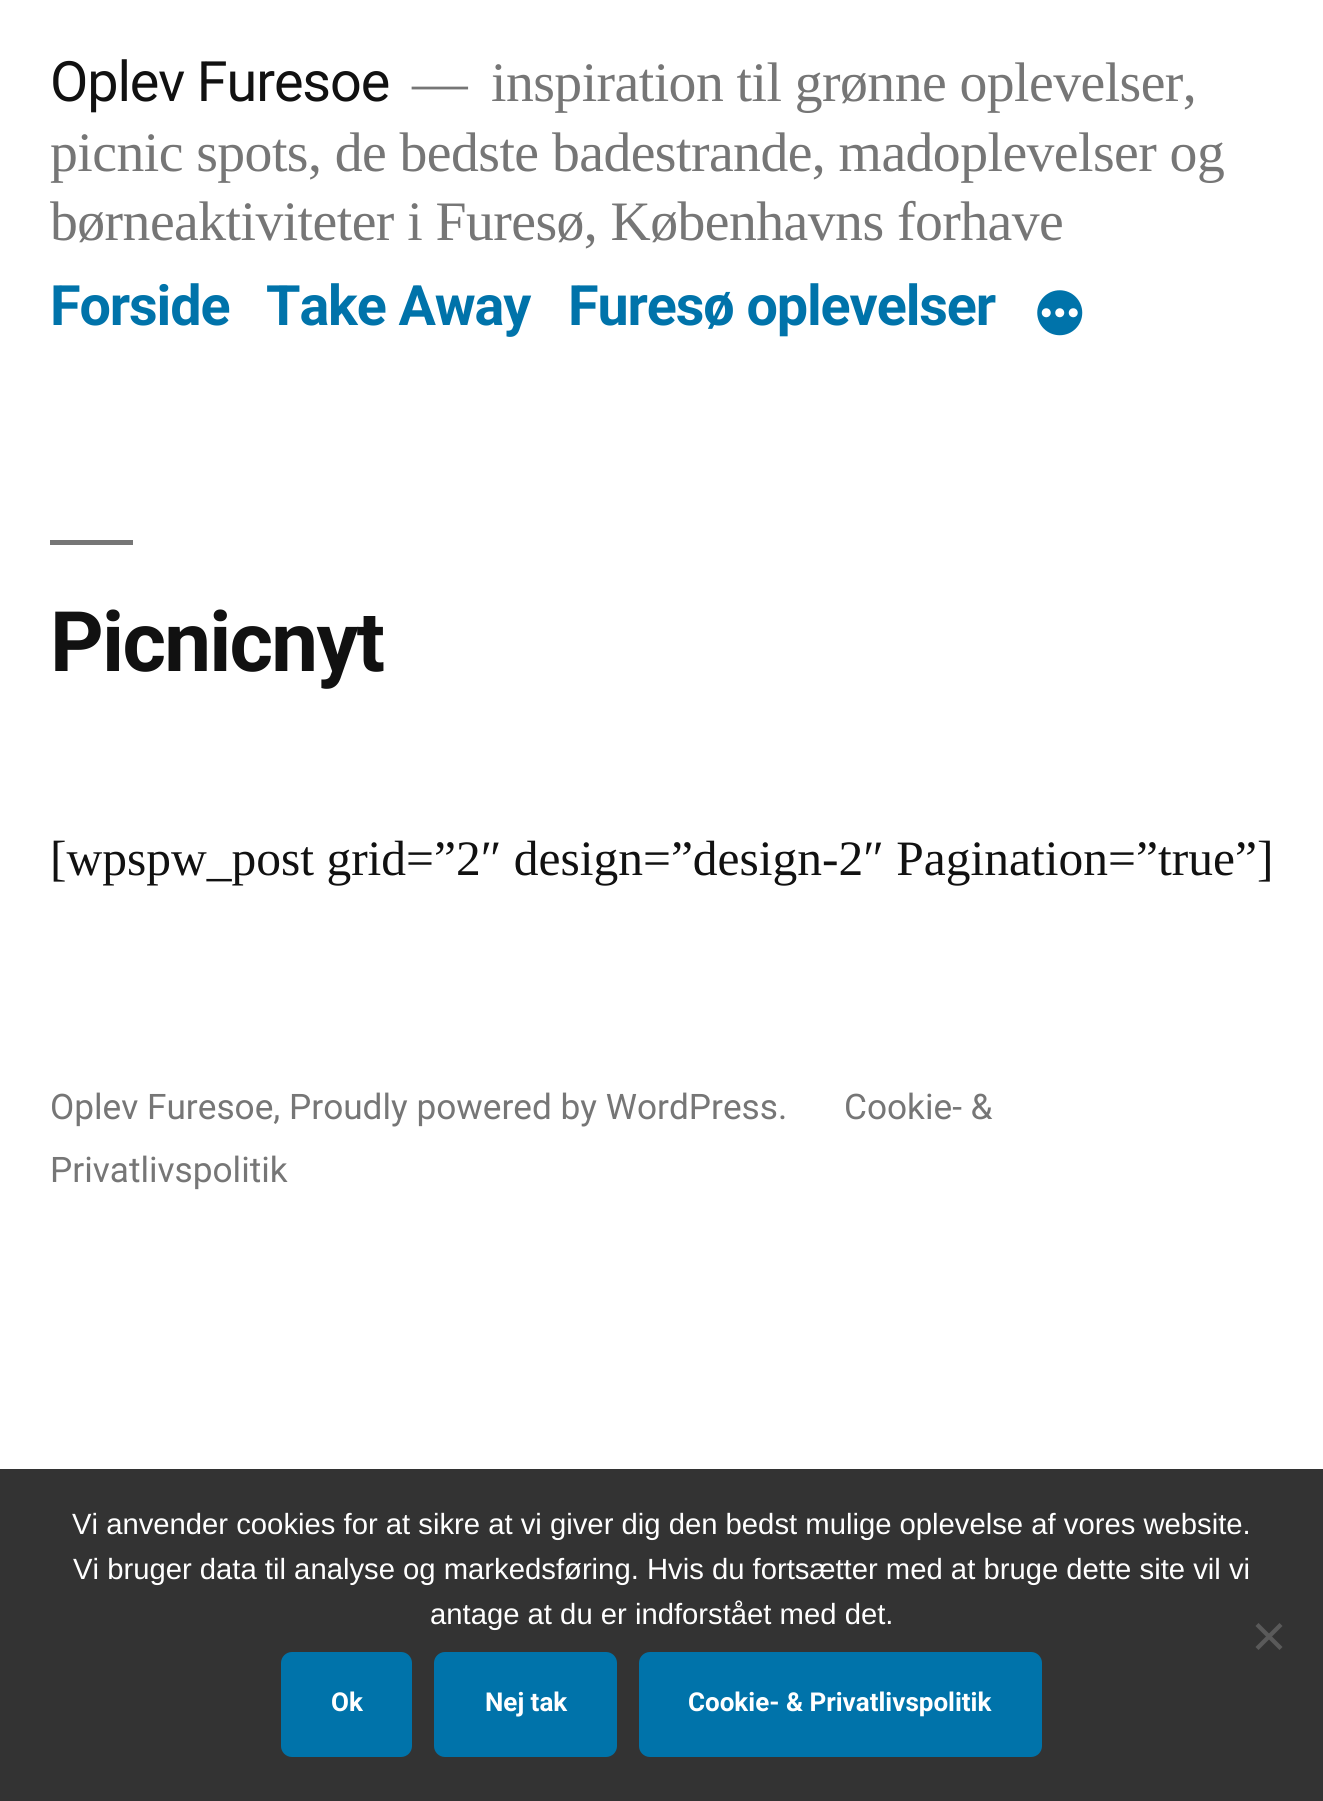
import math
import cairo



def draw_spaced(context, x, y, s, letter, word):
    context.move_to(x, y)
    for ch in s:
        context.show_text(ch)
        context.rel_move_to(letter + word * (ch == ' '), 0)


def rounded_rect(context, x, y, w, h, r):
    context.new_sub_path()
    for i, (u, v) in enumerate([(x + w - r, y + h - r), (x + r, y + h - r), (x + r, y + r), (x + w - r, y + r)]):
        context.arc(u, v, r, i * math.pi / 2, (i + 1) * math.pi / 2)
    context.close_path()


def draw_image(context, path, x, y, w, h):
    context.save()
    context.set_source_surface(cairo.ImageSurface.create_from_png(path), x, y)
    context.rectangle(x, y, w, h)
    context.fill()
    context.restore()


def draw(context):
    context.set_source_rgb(1, 1, 1)
    context.paint()
    draw_image(context, "images/1.png", 1037, 290, 46, 46)
    context.set_source_rgb(118 / 255, 118 / 255, 118 / 255)
    context.rectangle(50, 540, 83, 5)
    context.fill()
    context.set_source_rgb(51 / 255, 51 / 255, 51 / 255)
    context.rectangle(0, 1469, 1323, 332)
    context.fill()
    context.set_source_rgb(90 / 255, 90 / 255, 90 / 255)
    context.new_path()
    context.move_to(1279.5, 1623)
    context.line_to(1282.5, 1626)
    context.line_to(1258.5, 1650)
    context.line_to(1255.5, 1647)
    context.close_path()
    context.fill()
    context.new_path()
    context.move_to(1255.5, 1626)
    context.line_to(1258.5, 1623)
    context.line_to(1282.5, 1647)
    context.line_to(1279.5, 1650)
    context.close_path()
    context.fill()
    context.set_source_rgb(0, 115 / 255, 170 / 255)
    rounded_rect(context, 281, 1652, 131, 105, 11)
    context.fill()
    rounded_rect(context, 434, 1652, 183, 105, 11)
    context.fill()
    rounded_rect(context, 639, 1652, 403, 105, 11)
    context.fill()
    context.select_font_face("Roboto")
    context.set_font_size(55.7)
    context.set_source_rgb(17 / 255, 17 / 255, 17 / 255)
    draw_spaced(context, 50, 101, "Oplev Furesoe", -1.1, 0)
    context.select_font_face("Liberation Serif")
    context.set_source_rgb(118 / 255, 118 / 255, 118 / 255)
    draw_spaced(context, 412, 101, "—", -0.55, 0)
    draw_spaced(context, 491, 101, "inspiration til grønne oplevelser,", -0.55, 0)
    draw_spaced(context, 50, 171, "picnic spots, de bedste badestrande, madoplevelser og", -0.55, 0)
    draw_spaced(context, 50, 240, "børneaktiviteter i Furesø, Københavns forhave", -0.55, 0)
    context.select_font_face("Roboto", cairo.FontSlant.NORMAL, cairo.FontWeight.BOLD)
    context.set_source_rgb(0, 115 / 255, 170 / 255)
    draw_spaced(context, 50, 325, "Forside", -1.1, 0)
    draw_spaced(context, 266, 325, "Take Away", -1.1, 0)
    draw_spaced(context, 568, 325, "Furesø oplevelser", -1.1, 0)
    context.set_font_size(83.5)
    context.set_source_rgb(17 / 255, 17 / 255, 17 / 255)
    draw_spaced(context, 50, 671, "Picnicnyt", -1.75, 0)
    context.select_font_face("Liberation Serif")
    context.set_font_size(49.5)
    context.move_to(50, 875)
    context.show_text("[wpspw_post grid=”2″ design=”design-2″ Pagination=”true”]")
    context.select_font_face("Roboto")
    context.set_font_size(35.2)
    context.set_source_rgb(118 / 255, 118 / 255, 118 / 255)
    context.move_to(50, 1119)
    context.show_text("Oplev Furesoe, Proudly powered by WordPress.")
    context.move_to(844, 1119)
    context.show_text("Cookie- &")
    context.move_to(50, 1182)
    context.show_text("Privatlivspolitik")
    context.select_font_face("Liberation Sans")
    context.set_font_size(29.25)
    context.set_source_rgb(1, 1, 1)
    context.move_to(72, 1534)
    context.show_text("Vi anvender cookies for at sikre at vi giver dig den bedst mulige oplevelse af vores website.")
    context.move_to(73, 1579)
    context.show_text("Vi bruger data til analyse og markedsføring. Hvis du fortsætter med at bruge dette site vil vi")
    context.move_to(430, 1624)
    context.show_text("antage at du er indforstået med det.")
    context.select_font_face("Roboto", cairo.FontSlant.NORMAL, cairo.FontWeight.BOLD)
    context.set_font_size(26)
    context.move_to(331, 1711)
    context.show_text("Ok")
    context.move_to(485, 1711)
    context.show_text("Nej tak")
    context.move_to(688, 1711)
    context.show_text("Cookie- & Privatlivspolitik")


surface = cairo.ImageSurface(cairo.Format.RGB24, 1323, 1801)
context = cairo.Context(surface)
options = cairo.FontOptions()
options.set_hint_metrics(cairo.HintMetrics.OFF)
options.set_hint_style(cairo.HintStyle.NONE)
context.set_font_options(options)
context.set_miter_limit(4)
draw(context)
surface.write_to_png("out.png")
